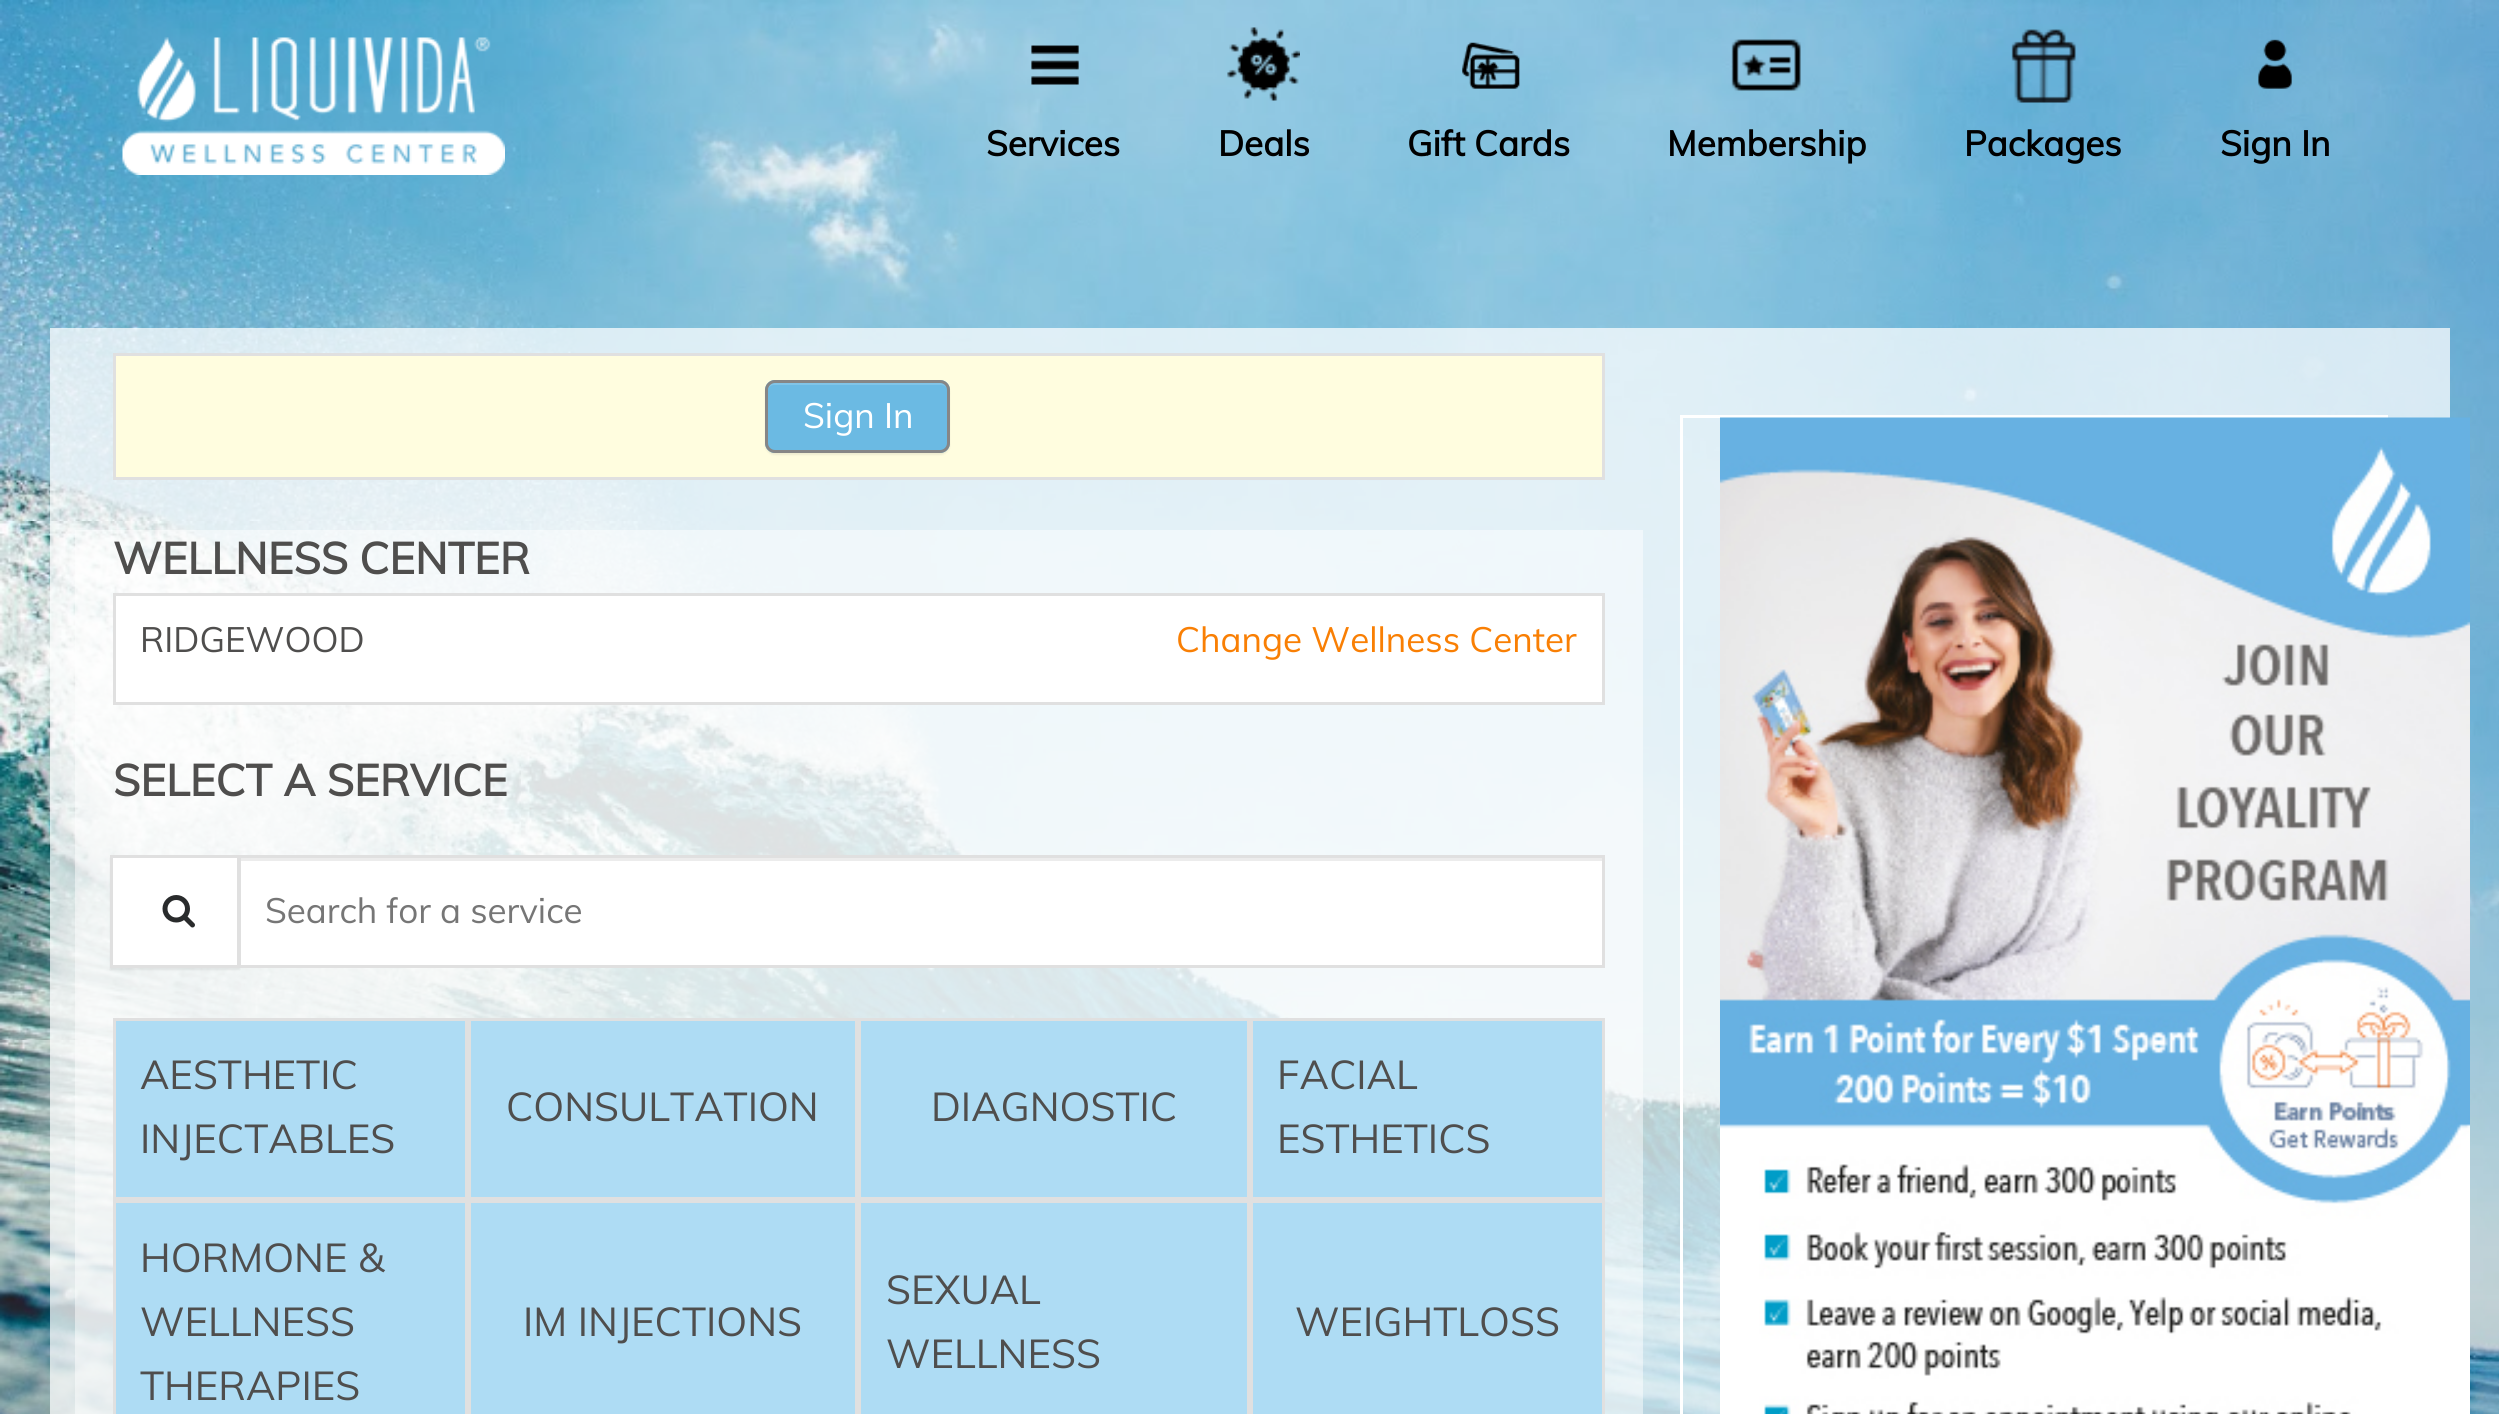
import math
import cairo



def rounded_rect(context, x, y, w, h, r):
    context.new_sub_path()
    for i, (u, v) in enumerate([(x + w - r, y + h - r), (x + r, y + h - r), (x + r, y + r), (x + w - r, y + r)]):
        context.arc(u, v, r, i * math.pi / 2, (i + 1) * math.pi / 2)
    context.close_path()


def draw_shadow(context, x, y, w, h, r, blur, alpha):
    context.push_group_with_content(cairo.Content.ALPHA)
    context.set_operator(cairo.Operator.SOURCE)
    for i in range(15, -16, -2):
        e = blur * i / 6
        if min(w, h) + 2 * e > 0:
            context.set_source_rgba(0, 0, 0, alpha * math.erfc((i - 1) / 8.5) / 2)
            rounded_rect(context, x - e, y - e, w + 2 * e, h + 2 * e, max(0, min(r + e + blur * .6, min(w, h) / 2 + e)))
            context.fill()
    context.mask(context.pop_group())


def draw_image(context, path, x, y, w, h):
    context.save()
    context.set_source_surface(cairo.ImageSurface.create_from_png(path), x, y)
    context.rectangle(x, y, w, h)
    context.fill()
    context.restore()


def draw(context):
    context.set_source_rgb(1, 1, 1)
    context.paint()
    draw_image(context, "images/1.png", 0, 0, 2499, 1414)
    draw_image(context, "images/2.png", 122, 37, 383, 138)
    draw_image(context, "images/3.png", 1031, 45, 48, 40)
    draw_image(context, "images/4.png", 1227, 27, 73, 74)
    draw_image(context, "images/5.png", 1462, 42, 58, 47)
    draw_image(context, "images/6.png", 1731, 39, 70, 52)
    draw_image(context, "images/7.png", 2011, 29, 65, 74)
    draw_image(context, "images/8.png", 2258, 39, 34, 50)
    context.set_source_rgba(1, 1, 1, 0.48)
    context.rectangle(50, 328, 2400, 1086)
    context.fill()
    context.rectangle(50, 328, 2400, 1086)
    context.fill()
    context.set_source_rgb(1, 253 / 255, 223 / 255)
    context.rectangle(114.5, 354.5, 1489, 124)
    context.fill_preserve()
    context.set_source_rgb(224 / 255, 224 / 255, 224 / 255)
    context.set_line_width(3)
    context.stroke()
    context.set_source_rgb(0, 0, 0)
    draw_shadow(context, 765, 383, 185, 72, 10, 1, 0.07)
    context.set_source_rgb(107 / 255, 186 / 255, 227 / 255)
    rounded_rect(context, 765, 380, 185, 73, 10)
    context.fill()
    context.set_source_rgb(129 / 255, 196 / 255, 231 / 255)
    context.new_path()
    context.move_to(774, 385)
    context.line_to(941, 385)
    context.curve_to(945, 385, 948, 388, 948, 391)
    context.line_to(948, 389)
    context.curve_to(948, 386, 945, 383, 942, 383)
    context.line_to(774, 383)
    context.curve_to(771, 383, 768, 386, 768, 389)
    context.line_to(768, 391)
    context.curve_to(768, 388, 770, 385, 774, 385)
    context.close_path()
    context.fill()
    rounded_rect(context, 766.5, 381.5, 182, 70, 8.5)
    context.set_source_rgb(134 / 255, 134 / 255, 134 / 255)
    context.stroke()
    context.set_source_rgba(1, 1, 1, 0.48)
    context.rectangle(75, 530, 1568, 884)
    context.fill()
    context.set_source_rgb(1, 1, 1)
    context.rectangle(114.5, 594.5, 1489, 109)
    context.fill_preserve()
    context.set_source_rgb(224 / 255, 224 / 255, 224 / 255)
    context.stroke()
    context.set_source_rgb(0, 0, 0)
    draw_shadow(context, 110, 858, 130, 112, 0, 1, 0.07)
    context.set_source_rgb(1, 1, 1)
    context.rectangle(111.5, 856.5, 127, 110)
    context.fill_preserve()
    context.set_source_rgb(224 / 255, 224 / 255, 224 / 255)
    context.stroke()
    draw_image(context, "images/9.png", 162, 895, 33, 33)
    context.set_source_rgb(1, 1, 1)
    context.rectangle(241, 861, 1361, 104)
    context.fill()
    context.set_source_rgb(236 / 255, 236 / 255, 236 / 255)
    context.rectangle(240, 858, 1363, 3)
    context.fill()
    context.rectangle(239.5, 856.5, 1364, 110)
    context.set_source_rgb(224 / 255, 224 / 255, 224 / 255)
    context.stroke()
    context.set_source_rgb(174 / 255, 220 / 255, 244 / 255)
    context.rectangle(114.5, 1019.5, 352, 179)
    context.fill_preserve()
    context.set_source_rgb(224 / 255, 224 / 255, 224 / 255)
    context.stroke()
    context.set_source_rgb(174 / 255, 220 / 255, 244 / 255)
    context.rectangle(469.5, 1019.5, 387, 179)
    context.fill_preserve()
    context.set_source_rgb(224 / 255, 224 / 255, 224 / 255)
    context.stroke()
    context.set_source_rgb(174 / 255, 220 / 255, 244 / 255)
    context.rectangle(859.5, 1019.5, 389, 179)
    context.fill_preserve()
    context.set_source_rgb(224 / 255, 224 / 255, 224 / 255)
    context.stroke()
    context.set_source_rgb(174 / 255, 220 / 255, 244 / 255)
    context.rectangle(1251.5, 1019.5, 352, 179)
    context.fill_preserve()
    context.set_source_rgb(224 / 255, 224 / 255, 224 / 255)
    context.stroke()
    context.set_source_rgb(174 / 255, 220 / 255, 244 / 255)
    context.rectangle(114.5, 1201.5, 352, 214)
    context.fill_preserve()
    context.set_source_rgb(224 / 255, 224 / 255, 224 / 255)
    context.stroke()
    context.set_source_rgb(174 / 255, 220 / 255, 244 / 255)
    context.rectangle(469.5, 1201.5, 387, 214)
    context.fill_preserve()
    context.set_source_rgb(224 / 255, 224 / 255, 224 / 255)
    context.stroke()
    context.set_source_rgb(174 / 255, 220 / 255, 244 / 255)
    context.rectangle(859.5, 1201.5, 389, 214)
    context.fill_preserve()
    context.set_source_rgb(224 / 255, 224 / 255, 224 / 255)
    context.stroke()
    context.set_source_rgb(174 / 255, 220 / 255, 244 / 255)
    context.rectangle(1251.5, 1201.5, 352, 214)
    context.fill_preserve()
    context.set_source_rgb(224 / 255, 224 / 255, 224 / 255)
    context.stroke()
    context.rectangle(1681.5, 416.5, 705, 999)
    context.set_source_rgb(1, 1, 1)
    context.stroke()
    draw_image(context, "images/10.png", 1720, 417, 750, 997)
    context.select_font_face("Muli", cairo.FontSlant.NORMAL, cairo.FontWeight.BOLD)
    context.set_font_size(35)
    context.set_source_rgb(0, 0, 0)
    context.move_to(986, 156)
    context.show_text("Services")
    context.move_to(1218, 156)
    context.show_text("Deals")
    context.move_to(1407, 156)
    context.show_text("Gift Cards")
    context.move_to(1667, 156)
    context.show_text("Membership")
    context.move_to(1964, 156)
    context.show_text("Packages")
    context.move_to(2220, 156)
    context.show_text("Sign In")
    context.select_font_face("Muli")
    context.set_source_rgb(1, 1, 1)
    context.move_to(803, 428)
    context.show_text("Sign In")
    context.select_font_face("Muli", cairo.FontSlant.NORMAL, cairo.FontWeight.BOLD)
    context.set_font_size(43.75)
    context.set_source_rgb(79 / 255, 78 / 255, 77 / 255)
    context.move_to(113, 574)
    context.show_text("WELLNESS CENTER")
    context.select_font_face("Muli")
    context.set_font_size(35)
    context.move_to(140, 652)
    context.show_text("RIDGEWOOD")
    context.set_source_rgb(249 / 255, 127 / 255, 4 / 255)
    context.move_to(1176, 652)
    context.show_text("Change Wellness Center")
    context.select_font_face("Muli", cairo.FontSlant.NORMAL, cairo.FontWeight.BOLD)
    context.set_font_size(43.75)
    context.set_source_rgb(79 / 255, 78 / 255, 77 / 255)
    context.move_to(113, 796)
    context.show_text("SELECT A SERVICE")
    context.select_font_face("Muli")
    context.set_font_size(35)
    context.set_source_rgb(118 / 255, 118 / 255, 118 / 255)
    context.move_to(265, 923)
    context.show_text("Search for a service")
    context.set_font_size(40)
    context.set_source_rgb(79 / 255, 78 / 255, 77 / 255)
    context.move_to(140, 1089)
    context.show_text("AESTHETIC")
    context.move_to(140, 1153)
    context.show_text("INJECTABLES")
    context.move_to(506, 1121)
    context.show_text("CONSULTATION")
    context.move_to(931, 1121)
    context.show_text("DIAGNOSTIC")
    context.move_to(1277, 1089)
    context.show_text("FACIAL")
    context.move_to(1277, 1153)
    context.show_text("ESTHETICS")
    context.move_to(140, 1272)
    context.show_text("HORMONE &")
    context.move_to(140, 1336)
    context.show_text("WELLNESS")
    context.move_to(140, 1400)
    context.show_text("THERAPIES")
    context.move_to(523, 1336)
    context.show_text("IM INJECTIONS")
    context.move_to(886, 1304)
    context.show_text("SEXUAL")
    context.move_to(886, 1368)
    context.show_text("WELLNESS")
    context.move_to(1295, 1336)
    context.show_text("WEIGHTLOSS")


surface = cairo.ImageSurface(cairo.Format.RGB24, 2499, 1414)
context = cairo.Context(surface)
options = cairo.FontOptions()
options.set_hint_metrics(cairo.HintMetrics.OFF)
options.set_hint_style(cairo.HintStyle.NONE)
context.set_font_options(options)
context.set_miter_limit(4)
draw(context)
surface.write_to_png("out.png")
